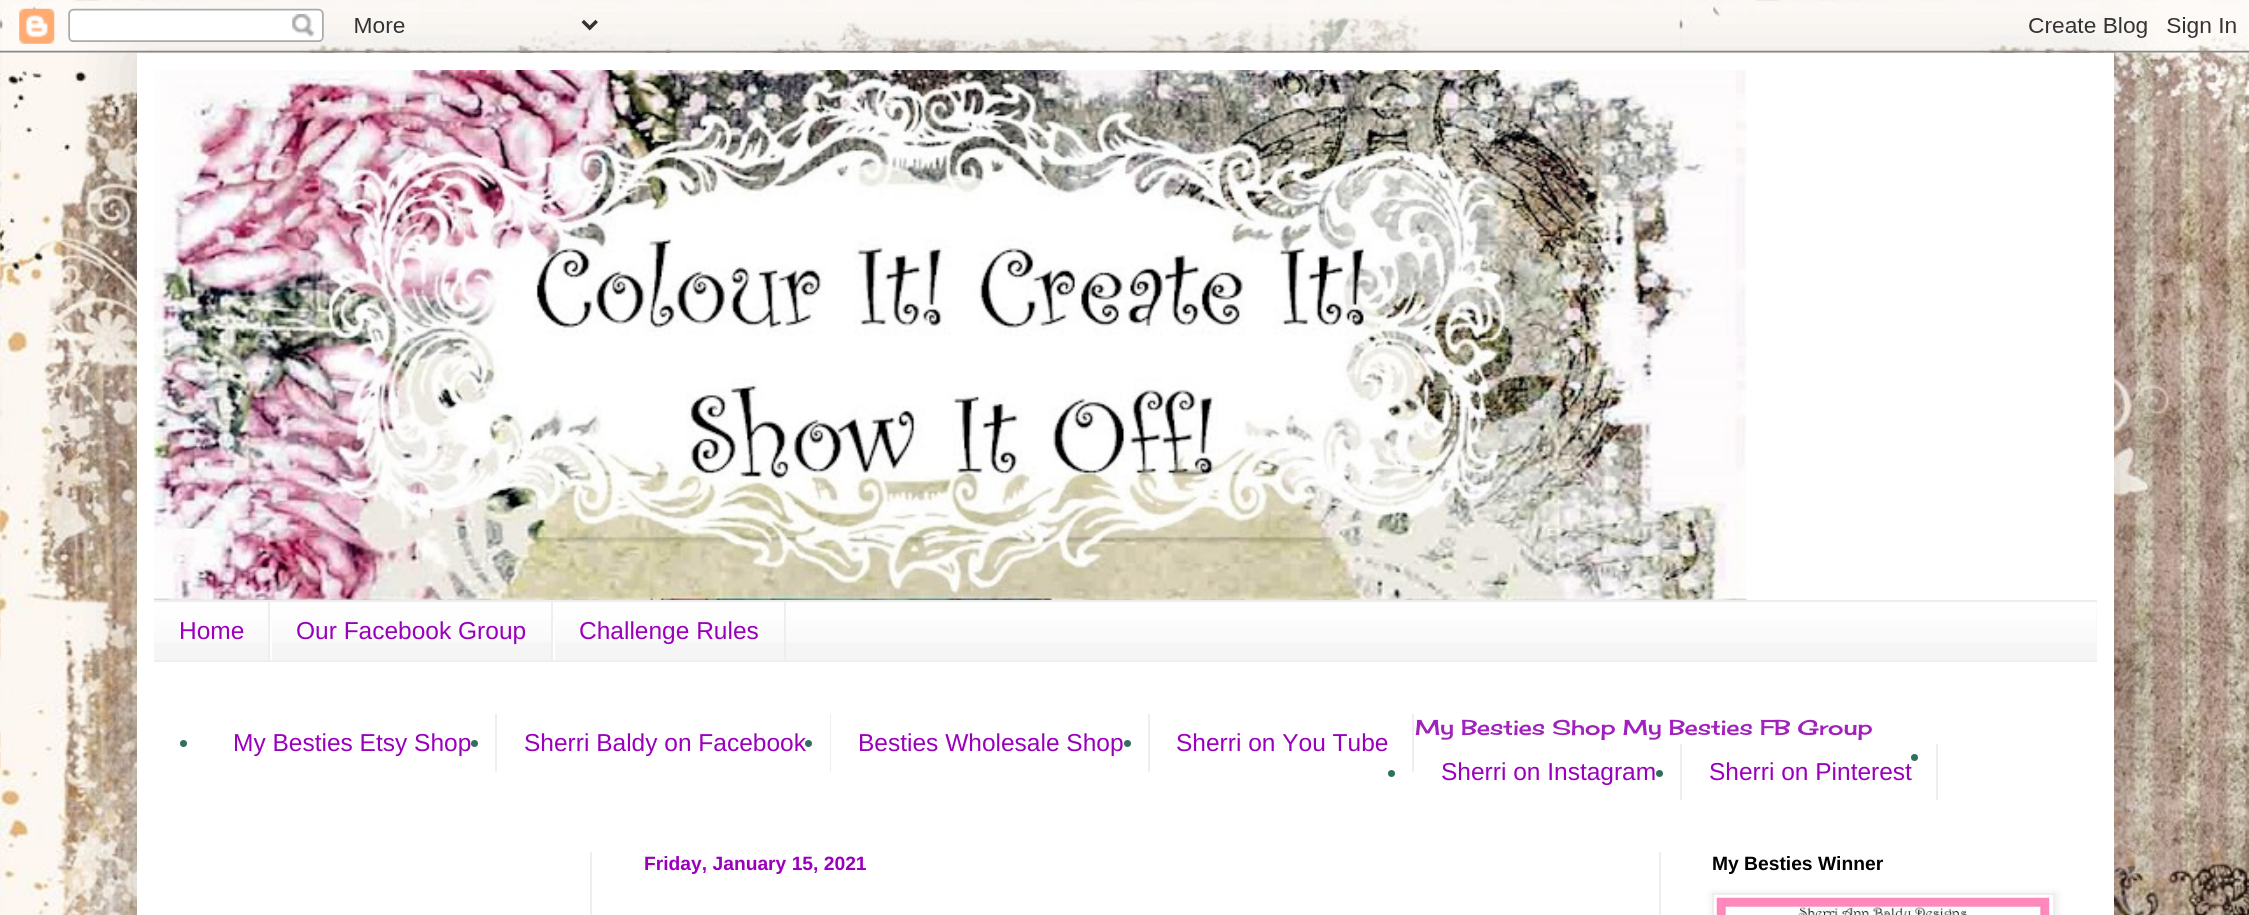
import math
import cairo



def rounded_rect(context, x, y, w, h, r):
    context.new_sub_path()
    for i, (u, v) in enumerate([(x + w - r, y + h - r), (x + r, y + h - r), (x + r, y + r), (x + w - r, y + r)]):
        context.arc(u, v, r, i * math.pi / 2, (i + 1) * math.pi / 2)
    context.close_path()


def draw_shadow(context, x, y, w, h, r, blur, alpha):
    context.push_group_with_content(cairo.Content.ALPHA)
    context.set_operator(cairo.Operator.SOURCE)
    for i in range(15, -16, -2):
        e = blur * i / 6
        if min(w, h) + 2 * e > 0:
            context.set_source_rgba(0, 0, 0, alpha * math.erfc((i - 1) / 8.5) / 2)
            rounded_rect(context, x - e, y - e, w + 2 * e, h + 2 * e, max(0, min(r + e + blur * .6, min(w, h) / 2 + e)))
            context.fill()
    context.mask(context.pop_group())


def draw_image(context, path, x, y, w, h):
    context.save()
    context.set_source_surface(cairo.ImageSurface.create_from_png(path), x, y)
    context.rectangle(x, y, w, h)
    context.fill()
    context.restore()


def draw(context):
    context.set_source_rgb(1, 1, 1)
    context.paint()
    draw_image(context, "images/1.png", 0, 0, 2249, 915)
    context.set_source_rgb(0, 0, 0)
    draw_shadow(context, 137, 53, 1977, 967, 0, 35, 0.15)
    draw_image(context, "images/2.png", 0, 0, 2249, 53)
    context.set_source_rgb(1, 1, 1)
    context.rectangle(137, 53, 1977, 862)
    context.fill()
    draw_image(context, "images/3.png", 154, 70, 1593, 530)
    context.set_source_rgb(245 / 255, 245 / 255, 245 / 255)
    context.rectangle(154, 602, 1943, 58)
    context.fill()
    draw_image(context, "images/4.png", 154, 602, 1943, 41)
    context.set_source_rgb(238 / 255, 238 / 255, 238 / 255)
    context.rectangle(154, 600, 1943, 2)
    context.fill()
    context.rectangle(154, 660, 1943, 2)
    context.fill()
    context.rectangle(268, 602, 2, 58)
    context.fill()
    context.rectangle(551, 602, 2, 58)
    context.fill()
    context.set_source_rgb(1, 1, 1)
    context.rectangle(270, 621, 2, 39)
    context.fill()
    context.set_source_rgb(238 / 255, 238 / 255, 238 / 255)
    context.rectangle(784, 602, 2, 58)
    context.fill()
    context.set_source_rgb(1, 1, 1)
    context.rectangle(553, 621, 2, 39)
    context.fill()
    context.set_source_rgb(51 / 255, 110 / 255, 97 / 255)
    context.arc(183.5, 743.5, 3.5, 0, 2 * math.pi)
    context.fill()
    context.set_source_rgb(238 / 255, 238 / 255, 238 / 255)
    context.rectangle(495, 714, 2, 58)
    context.fill()
    context.set_source_rgb(51 / 255, 110 / 255, 97 / 255)
    context.arc(474.5, 743.5, 3.5, 0, 2 * math.pi)
    context.fill()
    context.set_source_rgb(238 / 255, 238 / 255, 238 / 255)
    context.rectangle(830, 714, 1, 58)
    context.fill()
    context.rectangle(1148, 714, 2, 58)
    context.fill()
    context.set_source_rgb(51 / 255, 110 / 255, 97 / 255)
    context.arc(1127.5, 743.5, 3.5, 0, 2 * math.pi)
    context.fill()
    context.set_source_rgb(238 / 255, 238 / 255, 238 / 255)
    context.rectangle(1412, 714, 2, 58)
    context.fill()
    context.set_source_rgb(51 / 255, 110 / 255, 97 / 255)
    context.arc(1914.5, 757.5, 3.5, 0, 2 * math.pi)
    context.fill()
    context.arc(1391.5, 773.5, 3.5, 0, 2 * math.pi)
    context.fill()
    context.set_source_rgb(238 / 255, 238 / 255, 238 / 255)
    context.rectangle(1680, 744, 2, 56)
    context.fill()
    context.set_source_rgb(51 / 255, 110 / 255, 97 / 255)
    context.arc(1659.5, 773.5, 3.5, 0, 2 * math.pi)
    context.fill()
    context.set_source_rgb(238 / 255, 238 / 255, 238 / 255)
    context.rectangle(1936, 744, 2, 56)
    context.fill()
    context.rectangle(590, 852, 2, 63)
    context.fill()
    context.rectangle(1659, 852, 2, 63)
    context.fill()
    context.set_source_rgb(0, 0, 0)
    draw_shadow(context, 1713, 894, 343, 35, 0, 4.5, 0.1)
    context.set_source_rgb(1, 1, 1)
    context.rectangle(1713, 894, 341, 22)
    context.fill_preserve()
    context.set_source_rgb(238 / 255, 238 / 255, 238 / 255)
    context.stroke()
    draw_image(context, "images/5.png", 1716, 897, 334, 18)
    context.select_font_face("Liberation Sans")
    context.set_font_size(24.5)
    context.set_source_rgb(154 / 255, 0, 187 / 255)
    context.move_to(179, 639)
    context.show_text("Home")
    context.move_to(296, 639)
    context.show_text("Our Facebook Group")
    context.move_to(579, 639)
    context.show_text("Challenge Rules")
    context.select_font_face("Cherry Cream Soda")
    context.set_font_size(21)
    context.set_source_rgb(160 / 255, 33 / 255, 187 / 255)
    context.move_to(1415, 735)
    context.show_text("My Besties Shop My Besties FB Group")
    context.select_font_face("Liberation Sans")
    context.set_font_size(24.5)
    context.set_source_rgb(154 / 255, 0, 187 / 255)
    context.move_to(233, 751)
    context.show_text("My Besties Etsy Shop")
    context.move_to(524, 751)
    context.show_text("Sherri Baldy on Facebook")
    context.set_source_rgb(51 / 255, 110 / 255, 97 / 255)
    context.new_path()
    context.arc(808.5, 743.5, 3.5, 0, 2 * math.pi)
    context.fill()
    context.set_source_rgb(154 / 255, 0, 187 / 255)
    context.move_to(858, 751)
    context.show_text("Besties Wholesale Shop")
    context.move_to(1176, 751)
    context.show_text("Sherri on You Tube")
    context.move_to(1441, 780)
    context.show_text("Sherri on Instagram")
    context.move_to(1709, 780)
    context.show_text("Sherri on Pinterest")
    context.select_font_face("Liberation Sans", cairo.FontSlant.NORMAL, cairo.FontWeight.BOLD)
    context.set_font_size(19.25)
    context.move_to(644, 870)
    context.show_text("Friday, January 15, 2021")
    context.set_source_rgb(0, 0, 0)
    context.move_to(1712, 870)
    context.show_text("My Besties Winner")


surface = cairo.ImageSurface(cairo.Format.RGB24, 2249, 915)
context = cairo.Context(surface)
options = cairo.FontOptions()
options.set_hint_metrics(cairo.HintMetrics.OFF)
options.set_hint_style(cairo.HintStyle.NONE)
context.set_font_options(options)
context.set_miter_limit(4)
draw(context)
surface.write_to_png("out.png")
